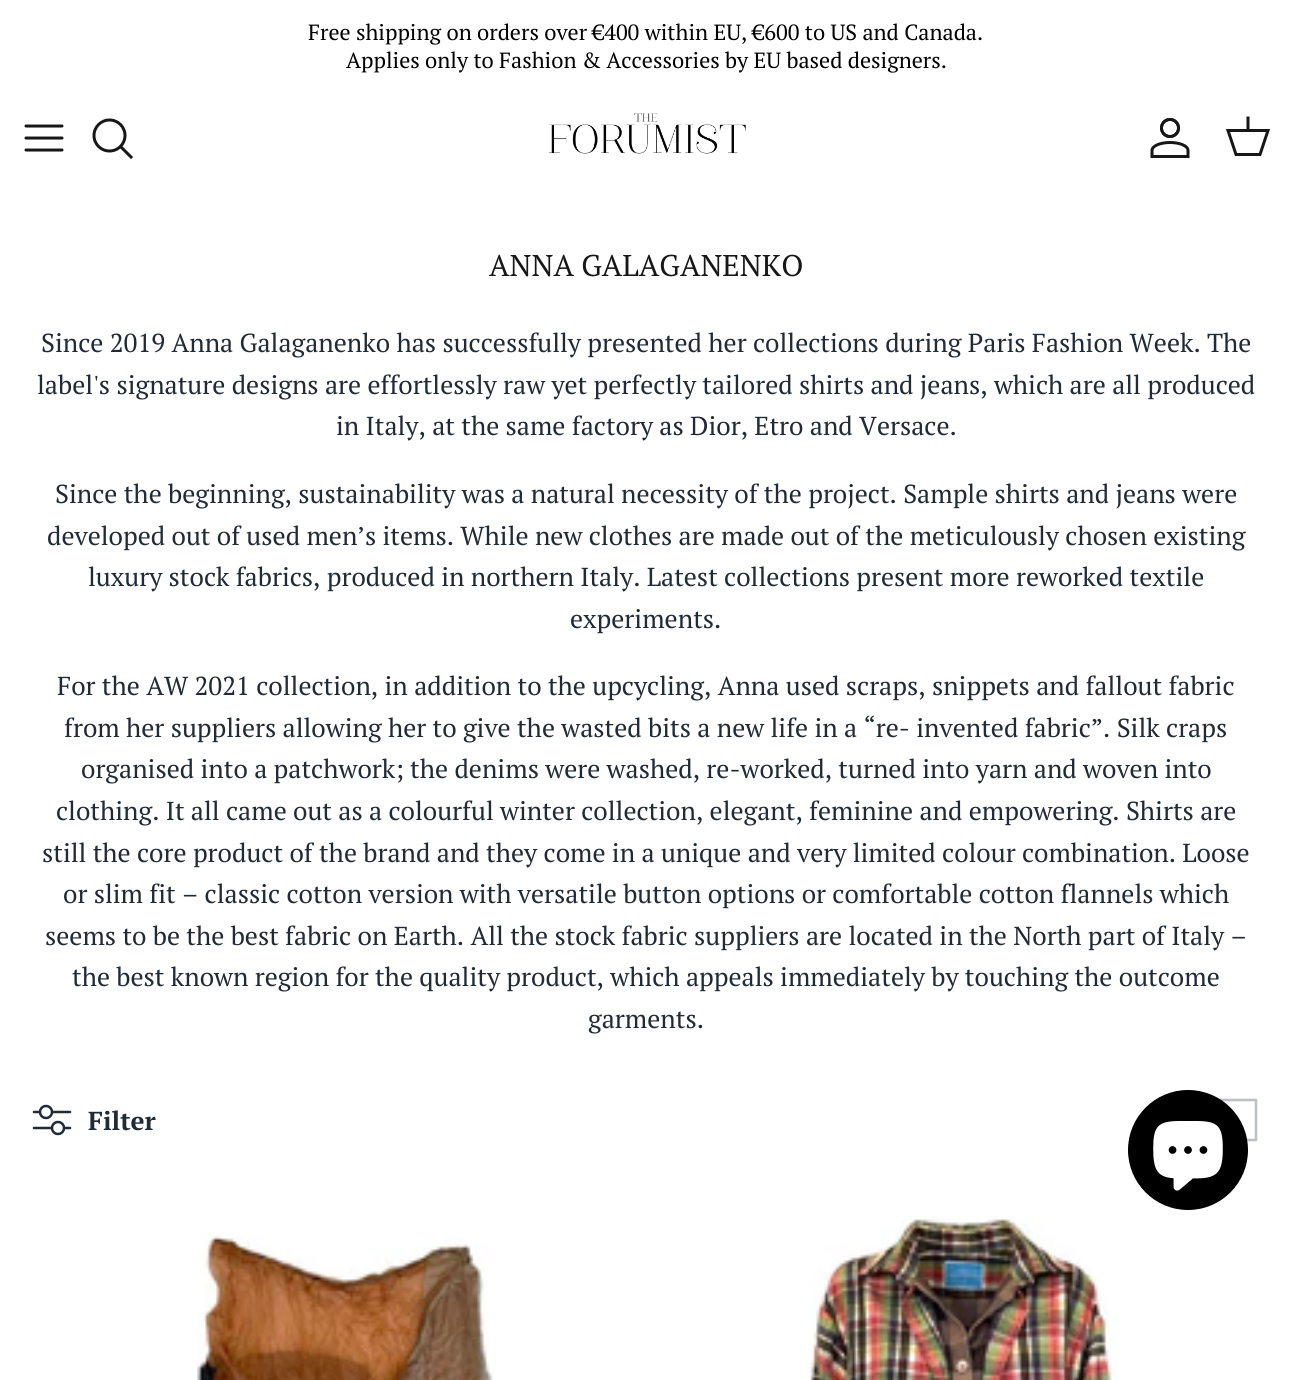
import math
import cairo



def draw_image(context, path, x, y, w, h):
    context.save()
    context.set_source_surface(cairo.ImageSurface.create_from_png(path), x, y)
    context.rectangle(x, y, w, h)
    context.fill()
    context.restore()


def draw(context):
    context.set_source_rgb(1, 1, 1)
    context.paint()
    context.new_path()
    context.move_to(26, 138)
    context.line_to(62, 138)
    context.move_to(26, 126)
    context.line_to(62, 126)
    context.move_to(26, 150)
    context.line_to(62, 150)
    context.set_source_rgb(23 / 255, 23 / 255, 23 / 255)
    context.set_line_width(3)
    context.set_line_cap(cairo.LineCap.ROUND)
    context.set_line_join(cairo.LineJoin.ROUND)
    context.stroke()
    context.arc(109.5, 135.5, 15.5, 0, 2 * math.pi)
    context.set_line_cap(cairo.LineCap.BUTT)
    context.set_line_join(cairo.LineJoin.MITER)
    context.stroke()
    context.new_path()
    context.move_to(122, 148)
    context.line_to(131, 157)
    context.set_line_cap(cairo.LineCap.SQUARE)
    context.stroke()
    draw_image(context, "images/1.png", 549, 113, 197, 41)
    draw_image(context, "images/2.png", 1150, 118, 40, 40)
    context.new_path()
    context.move_to(1228, 130.5)
    context.line_to(1268, 130.5)
    context.line_to(1260, 154.5)
    context.line_to(1236, 154.5)
    context.close_path()
    context.set_line_cap(cairo.LineCap.BUTT)
    context.stroke()
    context.new_path()
    context.move_to(1248, 130)
    context.line_to(1248, 118)
    context.set_line_cap(cairo.LineCap.SQUARE)
    context.stroke()
    context.new_path()
    context.move_to(34, 1112)
    context.line_to(70, 1112)
    context.move_to(34, 1128)
    context.line_to(70, 1128)
    context.set_source_rgb(33 / 255, 43 / 255, 54 / 255)
    context.set_line_width(2.5)
    context.set_line_cap(cairo.LineCap.ROUND)
    context.set_line_join(cairo.LineJoin.ROUND)
    context.stroke()
    context.set_source_rgb(1, 1, 1)
    context.arc(46, 1112, 6, 0, 2 * math.pi)
    context.fill_preserve()
    context.set_source_rgb(33 / 255, 43 / 255, 54 / 255)
    context.set_line_cap(cairo.LineCap.BUTT)
    context.set_line_join(cairo.LineJoin.MITER)
    context.stroke()
    context.set_source_rgb(1, 1, 1)
    context.arc(58, 1128, 6, 0, 2 * math.pi)
    context.fill_preserve()
    context.set_source_rgb(33 / 255, 43 / 255, 54 / 255)
    context.stroke()
    draw_image(context, "images/3.png", 1156, 1098, 3, 2)
    context.new_path()
    context.move_to(1216, 1100)
    context.line_to(1256, 1100)
    context.line_to(1256, 1140)
    context.line_to(1216, 1140)
    context.line_to(1216, 1100)
    context.set_source_rgb(188 / 255, 191 / 255, 195 / 255)
    context.set_line_width(2.6)
    context.set_line_cap(cairo.LineCap.ROUND)
    context.set_line_join(cairo.LineJoin.ROUND)
    context.stroke()
    draw_image(context, "images/4.png", 197, 1231, 296, 149)
    draw_image(context, "images/5.png", 807, 1216, 312, 164)
    context.set_source_rgb(0, 0, 0)
    context.arc(1188, 1150, 60, 0, 2 * math.pi)
    context.fill()
    draw_image(context, "images/6.png", 1153, 1121, 70, 70)
    context.select_font_face("PT Serif")
    context.set_font_size(22)
    context.move_to(308, 40)
    context.show_text("Free shipping on orders over €400 within EU, €600 to US and Canada.")
    context.move_to(346, 68)
    context.show_text("Applies only to Fashion & Accessories by EU based designers.")
    context.set_font_size(30)
    context.set_source_rgb(23 / 255, 23 / 255, 23 / 255)
    context.move_to(489, 276)
    context.show_text("ANNA GALAGANENKO")
    context.set_font_size(26)
    context.set_source_rgb(33 / 255, 43 / 255, 54 / 255)
    context.move_to(41, 352)
    context.show_text("Since 2019 Anna Galaganenko has successfully presented her collections during Paris Fashion Week. The")
    context.move_to(37, 394)
    context.show_text("label's signature designs are effortlessly raw yet perfectly tailored shirts and jeans, which are all produced")
    context.move_to(336, 435)
    context.show_text("in Italy, at the same factory as Dior, Etro and Versace.")
    context.move_to(55, 503)
    context.show_text("Since the beginning, sustainability was a natural necessity of the project. Sample shirts and jeans were")
    context.move_to(47, 545)
    context.show_text("developed out of used men’s items. While new clothes are made out of the meticulously chosen existing")
    context.move_to(88, 586)
    context.show_text("luxury stock fabrics, produced in northern Italy. Latest collections present more reworked textile")
    context.move_to(570, 628)
    context.show_text("experiments.")
    context.move_to(57, 695)
    context.show_text("For the AW 2021 collection, in addition to the upcycling, Anna used scraps, snippets and fallout fabric")
    context.move_to(64, 737)
    context.show_text("from her suppliers allowing her to give the wasted bits a new life in a “re- invented fabric”. Silk craps")
    context.move_to(81, 778)
    context.show_text("organised into a patchwork; the denims were washed, re-worked, turned into yarn and woven into")
    context.move_to(56, 820)
    context.show_text("clothing. It all came out as a colourful winter collection, elegant, feminine and empowering. Shirts are")
    context.move_to(42, 862)
    context.show_text("still the core product of the brand and they come in a unique and very limited colour combination. Loose")
    context.move_to(63, 903)
    context.show_text("or slim fit – classic cotton version with versatile button options or comfortable cotton flannels which")
    context.move_to(45, 945)
    context.show_text("seems to be the best fabric on Earth. All the stock fabric suppliers are located in the North part of Italy –")
    context.move_to(72, 986)
    context.show_text("the best known region for the quality product, which appeals immediately by touching the outcome")
    context.move_to(588, 1028)
    context.show_text("garments.")
    context.select_font_face("PT Serif", cairo.FontSlant.NORMAL, cairo.FontWeight.BOLD)
    context.move_to(88, 1130)
    context.show_text("Filter")


surface = cairo.ImageSurface(cairo.Format.RGB24, 1291, 1380)
context = cairo.Context(surface)
options = cairo.FontOptions()
options.set_hint_metrics(cairo.HintMetrics.OFF)
options.set_hint_style(cairo.HintStyle.NONE)
context.set_font_options(options)
context.set_miter_limit(4)
draw(context)
surface.write_to_png("out.png")
